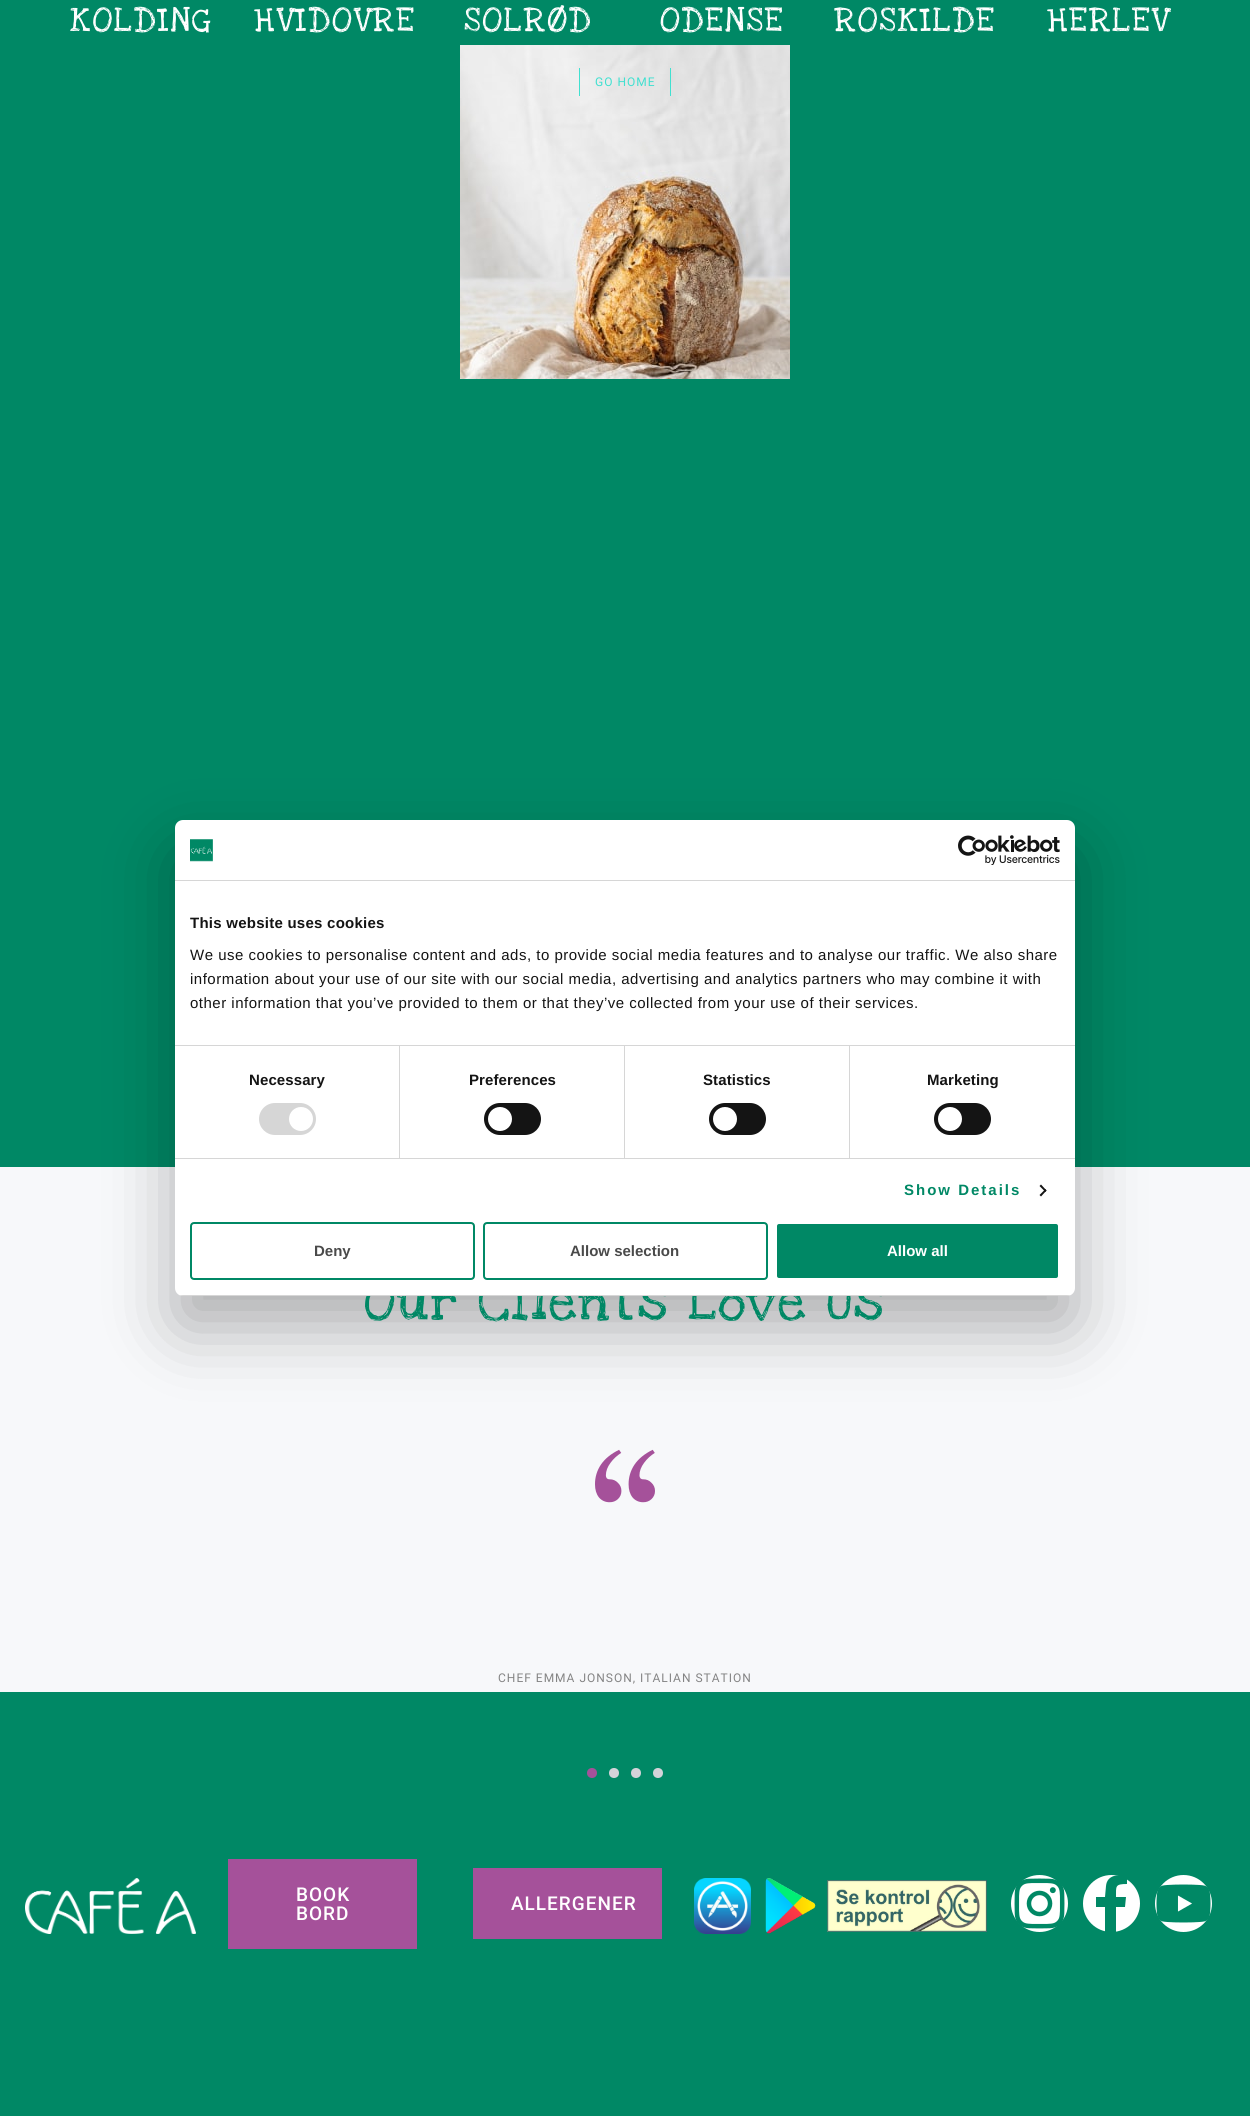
import math
import cairo



def draw_spaced(context, x, y, s, letter, word):
    context.move_to(x, y)
    for ch in s:
        context.show_text(ch)
        context.rel_move_to(letter + word * (ch == ' '), 0)


def rounded_rect(context, x, y, w, h, r):
    context.new_sub_path()
    for i, (u, v) in enumerate([(x + w - r, y + h - r), (x + r, y + h - r), (x + r, y + r), (x + w - r, y + r)]):
        context.arc(u, v, r, i * math.pi / 2, (i + 1) * math.pi / 2)
    context.close_path()


def draw_shadow(context, x, y, w, h, r, blur, alpha):
    context.push_group_with_content(cairo.Content.ALPHA)
    context.set_operator(cairo.Operator.SOURCE)
    for i in range(15, -16, -2):
        e = blur * i / 6
        if min(w, h) + 2 * e > 0:
            context.set_source_rgba(0, 0, 0, alpha * math.erfc((i - 1) / 8.5) / 2)
            rounded_rect(context, x - e, y - e, w + 2 * e, h + 2 * e, max(0, min(r + e + blur * .6, min(w, h) / 2 + e)))
            context.fill()
    context.mask(context.pop_group())


def draw_image(context, path, x, y, w, h):
    context.save()
    context.set_source_surface(cairo.ImageSurface.create_from_png(path), x, y)
    context.rectangle(x, y, w, h)
    context.fill()
    context.restore()


def draw(context):
    context.set_source_rgb(0, 136 / 255, 101 / 255)
    context.paint()
    draw_image(context, "images/1.png", 460, 45, 330, 334)
    context.set_source_rgb(64 / 255, 224 / 255, 208 / 255)
    context.rectangle(670, 68, 1, 28)
    context.fill()
    context.rectangle(579, 68, 1, 28)
    context.fill()
    context.set_source_rgb(247 / 255, 248 / 255, 250 / 255)
    context.rectangle(0, 1167, 1250, 525)
    context.fill()
    draw_image(context, "images/2.png", 595, 1449, 60, 54)
    context.set_source_rgb(165 / 255, 81 / 255, 154 / 255)
    context.arc(592, 1773, 5, 0, 2 * math.pi)
    context.fill()
    context.set_source_rgb(211 / 255, 211 / 255, 217 / 255)
    context.arc(614, 1773, 5, 0, 2 * math.pi)
    context.fill()
    context.arc(636, 1773, 5, 0, 2 * math.pi)
    context.fill()
    context.arc(658, 1773, 5, 0, 2 * math.pi)
    context.fill()
    context.set_source_rgb(0, 0, 0)
    draw_shadow(context, 175, 852, 900, 476, 8, 34, 0.3)
    draw_image(context, "images/5.png", 25, 1878, 171, 56)
    context.set_source_rgb(165 / 255, 81 / 255, 154 / 255)
    context.rectangle(228, 1859, 189, 90)
    context.fill()
    context.rectangle(473, 1868, 189, 71)
    context.fill()
    draw_image(context, "images/6.png", 694, 1878, 57, 56)
    draw_image(context, "images/7.png", 765, 1878, 51, 56)
    draw_image(context, "images/8.png", 827, 1880, 160, 52)
    context.set_source_rgb(1, 1, 1)
    context.arc(1039.5, 1903.5, 28.5, 0, 2 * math.pi)
    context.fill()
    draw_image(context, "images/9.png", 1014, 1878, 51, 51)
    context.arc(1111.5, 1903.5, 28.5, 0, 2 * math.pi)
    context.fill()
    context.set_source_rgb(0, 136 / 255, 101 / 255)
    context.new_path()
    context.move_to(1125, 1907)
    context.line_to(1126, 1897)
    context.line_to(1116, 1897)
    context.curve_to(1116, 1886, 1115, 1884, 1127, 1884)
    context.line_to(1127, 1876)
    context.curve_to(1118, 1874, 1107, 1875, 1106, 1886)
    context.line_to(1105, 1897)
    context.line_to(1096, 1897)
    context.line_to(1096, 1907)
    context.line_to(1105, 1907)
    context.line_to(1105, 1932)
    context.line_to(1116, 1932)
    context.line_to(1116, 1907)
    context.close_path()
    context.fill()
    context.set_source_rgb(1, 1, 1)
    context.arc(1183.5, 1903.5, 28.5, 0, 2 * math.pi)
    context.fill()
    draw_image(context, "images/10.png", 1156, 1884, 55, 39)
    context.select_font_face("Love Ya Like A Sister")
    context.set_font_size(35)
    draw_spaced(context, 70, 31, "KOLDING", 2, 0)
    draw_spaced(context, 254, 31, "HVIDOVRE", 2, 0)
    draw_spaced(context, 464, 31, "SOLRØD", 2, 0)
    draw_spaced(context, 660, 31, "ODENSE", 2, 0)
    draw_spaced(context, 834, 31, "ROSKILDE", 2, 0)
    draw_spaced(context, 1047, 31, "HERLEV", 2, 0)
    context.select_font_face("Roboto")
    context.set_font_size(12)
    context.set_source_rgb(64 / 255, 224 / 255, 208 / 255)
    draw_spaced(context, 595, 86, "GO HOME", 1, 0)
    context.select_font_face("Love Ya Like A Sister")
    context.set_font_size(55)
    context.set_source_rgb(0, 136 / 255, 101 / 255)
    draw_spaced(context, 364, 1319, "Our Clients Love Us", 2, 0)
    context.select_font_face("Roboto")
    context.set_font_size(12)
    context.set_source_rgb(132 / 255, 132 / 255, 132 / 255)
    draw_spaced(context, 498, 1682, "CHEF EMMA JONSON, ITALIAN STATION", 1, 0)
    context.set_source_rgb(1, 1, 1)
    rounded_rect(context, 175, 820, 900, 476, 8)
    context.fill()
    context.set_source_rgb(214 / 255, 214 / 255, 214 / 255)
    context.rectangle(175, 880, 900, 1)
    context.fill()
    draw_image(context, "images/3.png", 190, 839, 23, 23)
    draw_image(context, "images/4.png", 958, 835, 102, 30)
    context.rectangle(175, 1045, 900, 1)
    context.fill()
    context.select_font_face("Liberation Sans", cairo.FontSlant.NORMAL, cairo.FontWeight.BOLD)
    context.set_font_size(15)
    context.set_source_rgb(20 / 255, 20 / 255, 20 / 255)
    draw_spaced(context, 190, 928, "This website uses cookies", 0.25, 0)
    context.select_font_face("Liberation Sans")
    draw_spaced(context, 190, 960, "We use cookies to personalise content and ads, to provide social media features and to analyse our traffic. We also share", 0.5, 0)
    draw_spaced(context, 190, 984, "information about your use of our site with our social media, advertising and analytics partners who may combine it with", 0.5, 0)
    draw_spaced(context, 190, 1008, "other information that you’ve provided to them or that they’ve collected from your use of their services.", 0.5, 0)
    context.set_source_rgb(214 / 255, 214 / 255, 214 / 255)
    context.rectangle(175, 1158, 900, 1)
    context.fill()
    context.rectangle(399, 1046, 1, 112)
    context.fill()
    context.select_font_face("Liberation Sans", cairo.FontSlant.NORMAL, cairo.FontWeight.BOLD)
    context.set_source_rgb(20 / 255, 20 / 255, 20 / 255)
    draw_spaced(context, 249, 1085, "Necessary", 0.1, 0)
    context.set_source_rgb(214 / 255, 214 / 255, 214 / 255)
    rounded_rect(context, 259, 1103, 57, 32, 16)
    context.fill()
    context.set_source_rgb(1, 1, 1)
    context.arc(301, 1119, 12, 0, 2 * math.pi)
    context.fill()
    context.set_source_rgb(214 / 255, 214 / 255, 214 / 255)
    context.rectangle(624, 1046, 1, 112)
    context.fill()
    context.set_source_rgb(20 / 255, 20 / 255, 20 / 255)
    draw_spaced(context, 469, 1085, "Preferences", 0.1, 0)
    rounded_rect(context, 484, 1103, 57, 32, 16)
    context.fill()
    context.set_source_rgb(1, 1, 1)
    context.arc(500, 1119, 12, 0, 2 * math.pi)
    context.fill()
    context.set_source_rgb(214 / 255, 214 / 255, 214 / 255)
    context.rectangle(849, 1046, 1, 112)
    context.fill()
    context.set_source_rgb(20 / 255, 20 / 255, 20 / 255)
    draw_spaced(context, 703, 1085, "Statistics", 0.1, 0)
    rounded_rect(context, 709, 1103, 57, 32, 16)
    context.fill()
    context.set_source_rgb(1, 1, 1)
    context.arc(725, 1119, 12, 0, 2 * math.pi)
    context.fill()
    context.set_source_rgb(20 / 255, 20 / 255, 20 / 255)
    draw_spaced(context, 927, 1085, "Marketing", 0.1, 0)
    rounded_rect(context, 934, 1103, 57, 32, 16)
    context.fill()
    context.set_source_rgb(1, 1, 1)
    context.arc(950, 1119, 12, 0, 2 * math.pi)
    context.fill()
    context.set_source_rgb(0, 136 / 255, 101 / 255)
    draw_spaced(context, 904, 1195, "Show Details", 2, 0)
    context.set_source_rgb(20 / 255, 20 / 255, 20 / 255)
    context.new_path()
    context.move_to(1041, 1184.5)
    context.line_to(1046.5, 1190.5)
    context.line_to(1045.5, 1192)
    context.line_to(1039.5, 1186)
    context.close_path()
    context.fill()
    context.new_path()
    context.move_to(1045.5, 1189)
    context.line_to(1046.5, 1190.5)
    context.line_to(1041, 1196.5)
    context.line_to(1039.5, 1195)
    context.close_path()
    context.fill()
    context.save()
    rounded_rect(context, 175, 820, 900, 476, 8)
    context.clip()
    context.set_source_rgb(214 / 255, 214 / 255, 214 / 255)
    context.rectangle(175, 1295, 900, 1)
    context.fill()
    context.restore()
    rounded_rect(context, 191, 1223, 283, 56, 3)
    context.set_source_rgb(0, 136 / 255, 101 / 255)
    context.stroke()
    context.set_source_rgb(74 / 255, 74 / 255, 74 / 255)
    context.move_to(314, 1256)
    context.show_text("Deny")
    rounded_rect(context, 484, 1223, 283, 56, 3)
    context.set_source_rgb(0, 136 / 255, 101 / 255)
    context.stroke()
    context.set_source_rgb(74 / 255, 74 / 255, 74 / 255)
    context.move_to(570, 1256)
    context.show_text("Allow selection")
    context.set_source_rgb(0, 136 / 255, 101 / 255)
    rounded_rect(context, 776, 1223, 283, 56, 3)
    context.fill_preserve()
    context.set_source_rgb(1, 1, 1)
    context.stroke()
    context.move_to(887, 1256)
    context.show_text("Allow all")
    context.select_font_face("Roboto Medium")
    context.set_font_size(19)
    draw_spaced(context, 296, 1901, "BOOK", 1, 0)
    draw_spaced(context, 296, 1920, "BORD", 1, 0)
    draw_spaced(context, 511, 1910, "ALLERGENER", 1, 0)


surface = cairo.ImageSurface(cairo.Format.RGB24, 1250, 2116)
context = cairo.Context(surface)
options = cairo.FontOptions()
options.set_hint_metrics(cairo.HintMetrics.OFF)
options.set_hint_style(cairo.HintStyle.NONE)
context.set_font_options(options)
context.set_miter_limit(4)
draw(context)
surface.write_to_png("out.png")
